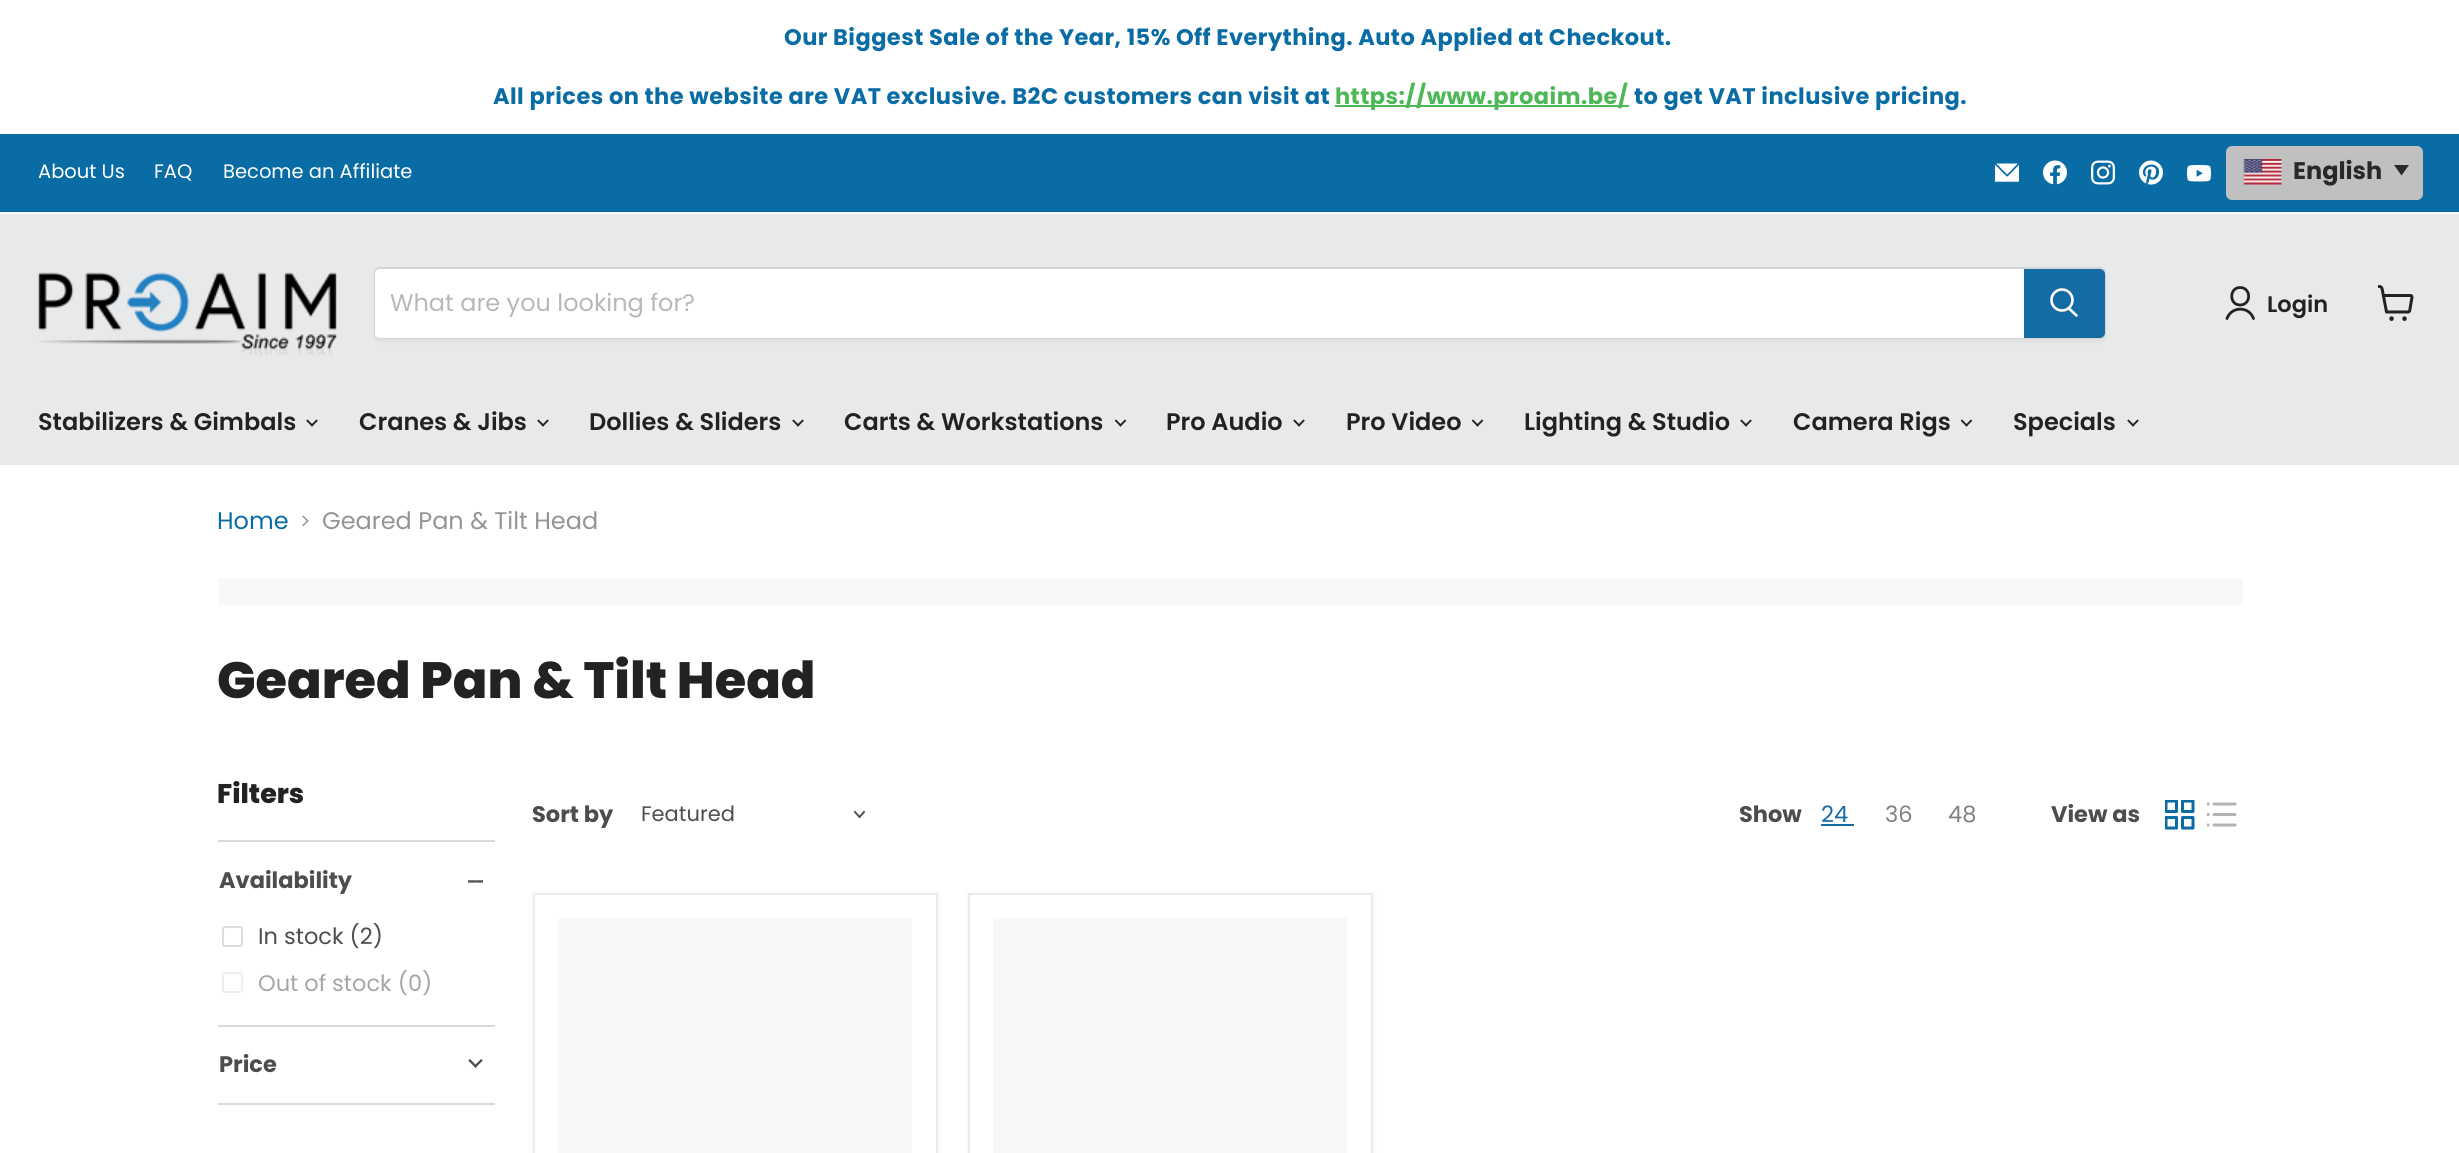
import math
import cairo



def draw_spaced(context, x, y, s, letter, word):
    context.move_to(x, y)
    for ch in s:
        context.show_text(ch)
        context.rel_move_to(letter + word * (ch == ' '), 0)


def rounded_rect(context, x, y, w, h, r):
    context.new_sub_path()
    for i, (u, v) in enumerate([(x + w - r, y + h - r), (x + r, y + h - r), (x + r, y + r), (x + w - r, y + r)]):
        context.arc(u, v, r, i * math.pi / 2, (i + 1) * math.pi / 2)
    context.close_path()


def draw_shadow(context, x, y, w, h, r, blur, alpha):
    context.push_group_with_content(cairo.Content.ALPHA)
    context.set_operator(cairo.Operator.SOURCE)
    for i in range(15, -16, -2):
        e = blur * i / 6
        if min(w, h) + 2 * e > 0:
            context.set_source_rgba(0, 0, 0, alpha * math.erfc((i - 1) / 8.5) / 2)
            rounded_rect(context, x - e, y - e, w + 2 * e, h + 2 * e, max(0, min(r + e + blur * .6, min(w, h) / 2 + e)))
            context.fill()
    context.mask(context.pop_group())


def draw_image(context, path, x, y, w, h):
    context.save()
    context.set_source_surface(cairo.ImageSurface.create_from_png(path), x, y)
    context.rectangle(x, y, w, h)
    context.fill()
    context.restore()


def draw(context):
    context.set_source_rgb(1, 1, 1)
    context.paint()
    context.set_source_rgb(78 / 255, 184 / 255, 87 / 255)
    context.rectangle(1335, 105, 294, 2)
    context.fill()
    context.set_source_rgb(9 / 255, 108 / 255, 164 / 255)
    context.rectangle(0, 134, 2459, 78)
    context.fill()
    draw_image(context, "images/1.png", 1995, 163, 24, 19)
    draw_image(context, "images/2.png", 2043, 160, 24, 25)
    draw_image(context, "images/3.png", 2091, 160, 24, 25)
    draw_image(context, "images/4.png", 2139, 160, 24, 25)
    draw_image(context, "images/5.png", 2187, 165, 24, 17)
    context.set_source_rgb(192 / 255, 192 / 255, 192 / 255)
    rounded_rect(context, 2226, 146, 197, 54, 6)
    context.fill()
    draw_image(context, "images/6.png", 2243, 159, 39, 26)
    context.set_source_rgb(40 / 255, 40 / 255, 40 / 255)
    context.new_path()
    context.move_to(2394, 165)
    context.line_to(2409, 165)
    context.line_to(2401.5, 175.5)
    context.close_path()
    context.fill()
    context.set_source_rgb(232 / 255, 233 / 255, 234 / 255)
    context.rectangle(0, 214, 2459, 251)
    context.fill()
    draw_image(context, "images/7.png", 37, 272, 300, 84)
    context.set_source_rgb(128 / 255, 128 / 255, 128 / 255)
    draw_shadow(context, 374, 270, 1732, 72, 6, 2, 0.11)
    rounded_rect(context, 375, 268, 1730, 70, 5)
    context.set_source_rgb(211 / 255, 212 / 255, 213 / 255)
    context.stroke()
    context.set_source_rgb(1, 1, 1)
    context.new_path()
    context.move_to(380, 269)
    context.line_to(2024, 269)
    context.line_to(2024, 338)
    context.line_to(380, 338)
    context.curve_to(377, 338, 375, 336, 375, 333)
    context.line_to(375, 274)
    context.curve_to(375, 271, 377, 269, 380, 269)
    context.close_path()
    context.fill()
    context.set_source_rgb(20 / 255, 108 / 255, 164 / 255)
    context.new_path()
    context.move_to(2025, 270)
    context.line_to(2100, 270)
    context.curve_to(2102, 270, 2104, 272, 2104, 274)
    context.line_to(2104, 333)
    context.curve_to(2104, 335, 2102, 337, 2100, 337)
    context.line_to(2025, 337)
    context.close_path()
    context.fill_preserve()
    context.stroke()
    context.new_path()
    context.move_to(2076.5, 315.5)
    context.line_to(2069, 308.5)
    context.set_source_rgb(1, 1, 1)
    context.set_line_width(2.6)
    context.set_line_cap(cairo.LineCap.ROUND)
    context.stroke()
    context.arc(2062, 300, 10.5, 0, 2 * math.pi)
    context.set_line_cap(cairo.LineCap.BUTT)
    context.stroke()
    context.new_path()
    context.move_to(2240, 305)
    context.curve_to(2251.5, 305, 2251.5, 287.5, 2240, 287.5)
    context.curve_to(2229, 287.5, 2229, 305, 2240, 305)
    context.close_path()
    context.move_to(2253.5, 318.5)
    context.curve_to(2249, 306, 2231.5, 306, 2227, 318.5)
    context.set_source_rgb(34 / 255, 34 / 255, 34 / 255)
    context.set_line_width(2.8)
    context.set_line_cap(cairo.LineCap.ROUND)
    context.set_line_join(cairo.LineJoin.ROUND)
    context.stroke()
    draw_image(context, "images/8.png", 2378, 285, 36, 36)
    draw_image(context, "images/9.png", 306, 419, 12, 8)
    draw_image(context, "images/9.png", 537, 419, 12, 8)
    draw_image(context, "images/9.png", 792, 419, 12, 8)
    draw_image(context, "images/10.png", 1115, 419, 12, 8)
    draw_image(context, "images/9.png", 1293, 419, 12, 8)
    draw_image(context, "images/10.png", 1472, 419, 12, 8)
    draw_image(context, "images/9.png", 1740, 419, 12, 8)
    draw_image(context, "images/10.png", 1961, 419, 12, 8)
    draw_image(context, "images/9.png", 2127, 419, 12, 8)
    draw_image(context, "images/11.png", 302, 515, 7, 12)
    context.set_source_rgb(248 / 255, 248 / 255, 248 / 255)
    context.rectangle(218, 578, 2025, 27)
    context.fill()
    context.set_source_rgb(217 / 255, 217 / 255, 217 / 255)
    context.rectangle(218, 840, 277, 2)
    context.fill()
    draw_image(context, "images/12.png", 468, 880, 15, 3)
    rounded_rect(context, 223, 927, 19, 19, 2)
    context.set_source_rgb(221 / 255, 221 / 255, 221 / 255)
    context.set_line_width(2)
    context.set_line_cap(cairo.LineCap.BUTT)
    context.set_line_join(cairo.LineJoin.MITER)
    context.stroke()
    rounded_rect(context, 223, 973, 19, 19, 2)
    context.set_source_rgb(238 / 255, 238 / 255, 238 / 255)
    context.stroke()
    context.set_source_rgb(217 / 255, 217 / 255, 217 / 255)
    context.rectangle(218, 1025, 277, 2)
    context.fill()
    context.rectangle(218, 1103, 277, 2)
    context.fill()
    draw_image(context, "images/13.png", 468, 1059, 15, 9)
    context.new_path()
    context.move_to(859.5, 817)
    context.line_to(864, 812)
    context.move_to(859.5, 817)
    context.line_to(855, 812)
    context.set_source_rgb(77 / 255, 77 / 255, 77 / 255)
    context.set_line_width(1.9)
    context.set_line_cap(cairo.LineCap.SQUARE)
    context.stroke()
    context.set_source_rgb(20 / 255, 108 / 255, 164 / 255)
    context.rectangle(1821, 824, 33, 2)
    context.fill()
    draw_image(context, "images/14.png", 2165, 800, 30, 30)
    draw_image(context, "images/15.png", 2207, 802, 30, 25)
    context.set_source_rgb(128 / 255, 128 / 255, 128 / 255)
    draw_shadow(context, 533, 894, 405, 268, 0, 3, 0.11)
    context.set_source_rgb(1, 1, 1)
    context.rectangle(534, 894, 403, 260)
    context.fill_preserve()
    context.set_source_rgb(235 / 255, 235 / 255, 235 / 255)
    context.set_line_width(2)
    context.set_line_cap(cairo.LineCap.BUTT)
    context.stroke()
    context.set_source_rgb(248 / 255, 248 / 255, 248 / 255)
    context.rectangle(558, 918, 354, 235)
    context.fill()
    context.set_source_rgb(128 / 255, 128 / 255, 128 / 255)
    draw_shadow(context, 968, 894, 405, 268, 0, 3, 0.11)
    context.set_source_rgb(1, 1, 1)
    context.rectangle(969, 894, 403, 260)
    context.fill_preserve()
    context.set_source_rgb(235 / 255, 235 / 255, 235 / 255)
    context.stroke()
    context.set_source_rgb(248 / 255, 248 / 255, 248 / 255)
    context.rectangle(993, 918, 354, 235)
    context.fill()
    context.select_font_face("Poppins", cairo.FontSlant.NORMAL, cairo.FontWeight.BOLD)
    context.set_font_size(22.5)
    context.set_source_rgb(9 / 255, 108 / 255, 164 / 255)
    draw_spaced(context, 784, 45, "Our Biggest Sale of the Year, 15% Off Everything. Auto Applied at Checkout.", 0.45, 0)
    draw_spaced(context, 493, 104, "All prices on the website are VAT exclusive. B2C customers can visit at", 0.45, 0)
    context.set_source_rgb(78 / 255, 184 / 255, 87 / 255)
    draw_spaced(context, 1335, 104, "https://www.proaim.be/", 0.45, 0)
    context.set_source_rgb(9 / 255, 108 / 255, 164 / 255)
    draw_spaced(context, 1634, 104, "to get VAT inclusive pricing.", 0.45, 0)
    context.select_font_face("Poppins")
    context.set_font_size(19.5)
    context.set_source_rgb(1, 1, 1)
    context.move_to(38, 178)
    context.show_text("About Us")
    context.move_to(154, 178)
    context.show_text("FAQ")
    context.move_to(223, 178)
    context.show_text("Become an Affiliate")
    context.select_font_face("Poppins", cairo.FontSlant.NORMAL, cairo.FontWeight.BOLD)
    context.set_font_size(24)
    context.set_source_rgb(40 / 255, 40 / 255, 40 / 255)
    context.move_to(2293, 179)
    context.show_text("English")
    context.select_font_face("Poppins")
    context.set_source_rgb(184 / 255, 184 / 255, 184 / 255)
    context.move_to(390, 311)
    context.show_text("What are you looking for?")
    context.select_font_face("Poppins SemiBold")
    context.set_font_size(22.5)
    context.set_source_rgb(34 / 255, 34 / 255, 34 / 255)
    context.move_to(2267, 312)
    context.show_text("Login")
    context.set_font_size(24)
    context.move_to(38, 430)
    context.show_text("Stabilizers & Gimbals")
    context.move_to(359, 430)
    context.show_text("Cranes & Jibs")
    context.move_to(589, 430)
    context.show_text("Dollies & Sliders")
    context.move_to(844, 430)
    context.show_text("Carts & Workstations")
    context.move_to(1166, 430)
    context.show_text("Pro Audio")
    context.move_to(1346, 430)
    context.show_text("Pro Video")
    context.move_to(1524, 430)
    context.show_text("Lighting & Studio")
    context.move_to(1793, 430)
    context.show_text("Camera Rigs")
    context.move_to(2013, 430)
    context.show_text("Specials")
    context.select_font_face("Poppins")
    context.set_source_rgb(9 / 255, 108 / 255, 164 / 255)
    context.move_to(217, 529)
    context.show_text("Home")
    context.set_source_rgb(148 / 255, 148 / 255, 148 / 255)
    context.move_to(322, 529)
    context.show_text("Geared Pan & Tilt Head")
    context.select_font_face("Poppins ExtraBold")
    context.set_font_size(51)
    context.set_source_rgb(34 / 255, 34 / 255, 34 / 255)
    context.move_to(217, 698)
    context.show_text("Geared Pan & Tilt Head")
    context.set_font_size(27)
    context.move_to(217, 803)
    context.show_text("Filters")
    context.select_font_face("Poppins", cairo.FontSlant.NORMAL, cairo.FontWeight.BOLD)
    context.set_font_size(22.5)
    context.set_source_rgb(77 / 255, 77 / 255, 77 / 255)
    context.move_to(219, 888)
    context.show_text("Availability")
    context.select_font_face("Poppins")
    context.move_to(258, 944)
    context.show_text("In stock (2)")
    context.set_source_rgb(166 / 255, 166 / 255, 166 / 255)
    context.move_to(258, 991)
    context.show_text("Out of stock (0)")
    context.select_font_face("Poppins", cairo.FontSlant.NORMAL, cairo.FontWeight.BOLD)
    context.set_source_rgb(77 / 255, 77 / 255, 77 / 255)
    context.move_to(219, 1072)
    context.show_text("Price")
    context.move_to(532, 822)
    context.show_text("Sort by")
    context.select_font_face("Poppins")
    context.set_font_size(21)
    context.move_to(641, 821)
    context.show_text("Featured")
    context.select_font_face("Poppins", cairo.FontSlant.NORMAL, cairo.FontWeight.BOLD)
    context.set_font_size(22.5)
    context.move_to(1739, 822)
    context.show_text("Show")
    context.select_font_face("Poppins")
    context.set_source_rgb(20 / 255, 108 / 255, 164 / 255)
    context.move_to(1821, 822)
    context.show_text("24")
    context.set_source_rgb(128 / 255, 128 / 255, 128 / 255)
    context.move_to(1885, 822)
    context.show_text("36")
    context.move_to(1948, 822)
    context.show_text("48")
    context.select_font_face("Poppins", cairo.FontSlant.NORMAL, cairo.FontWeight.BOLD)
    context.set_source_rgb(77 / 255, 77 / 255, 77 / 255)
    context.move_to(2051, 822)
    context.show_text("View as")


surface = cairo.ImageSurface(cairo.Format.RGB24, 2459, 1153)
context = cairo.Context(surface)
options = cairo.FontOptions()
options.set_hint_metrics(cairo.HintMetrics.OFF)
options.set_hint_style(cairo.HintStyle.NONE)
context.set_font_options(options)
context.set_miter_limit(4)
draw(context)
surface.write_to_png("out.png")
